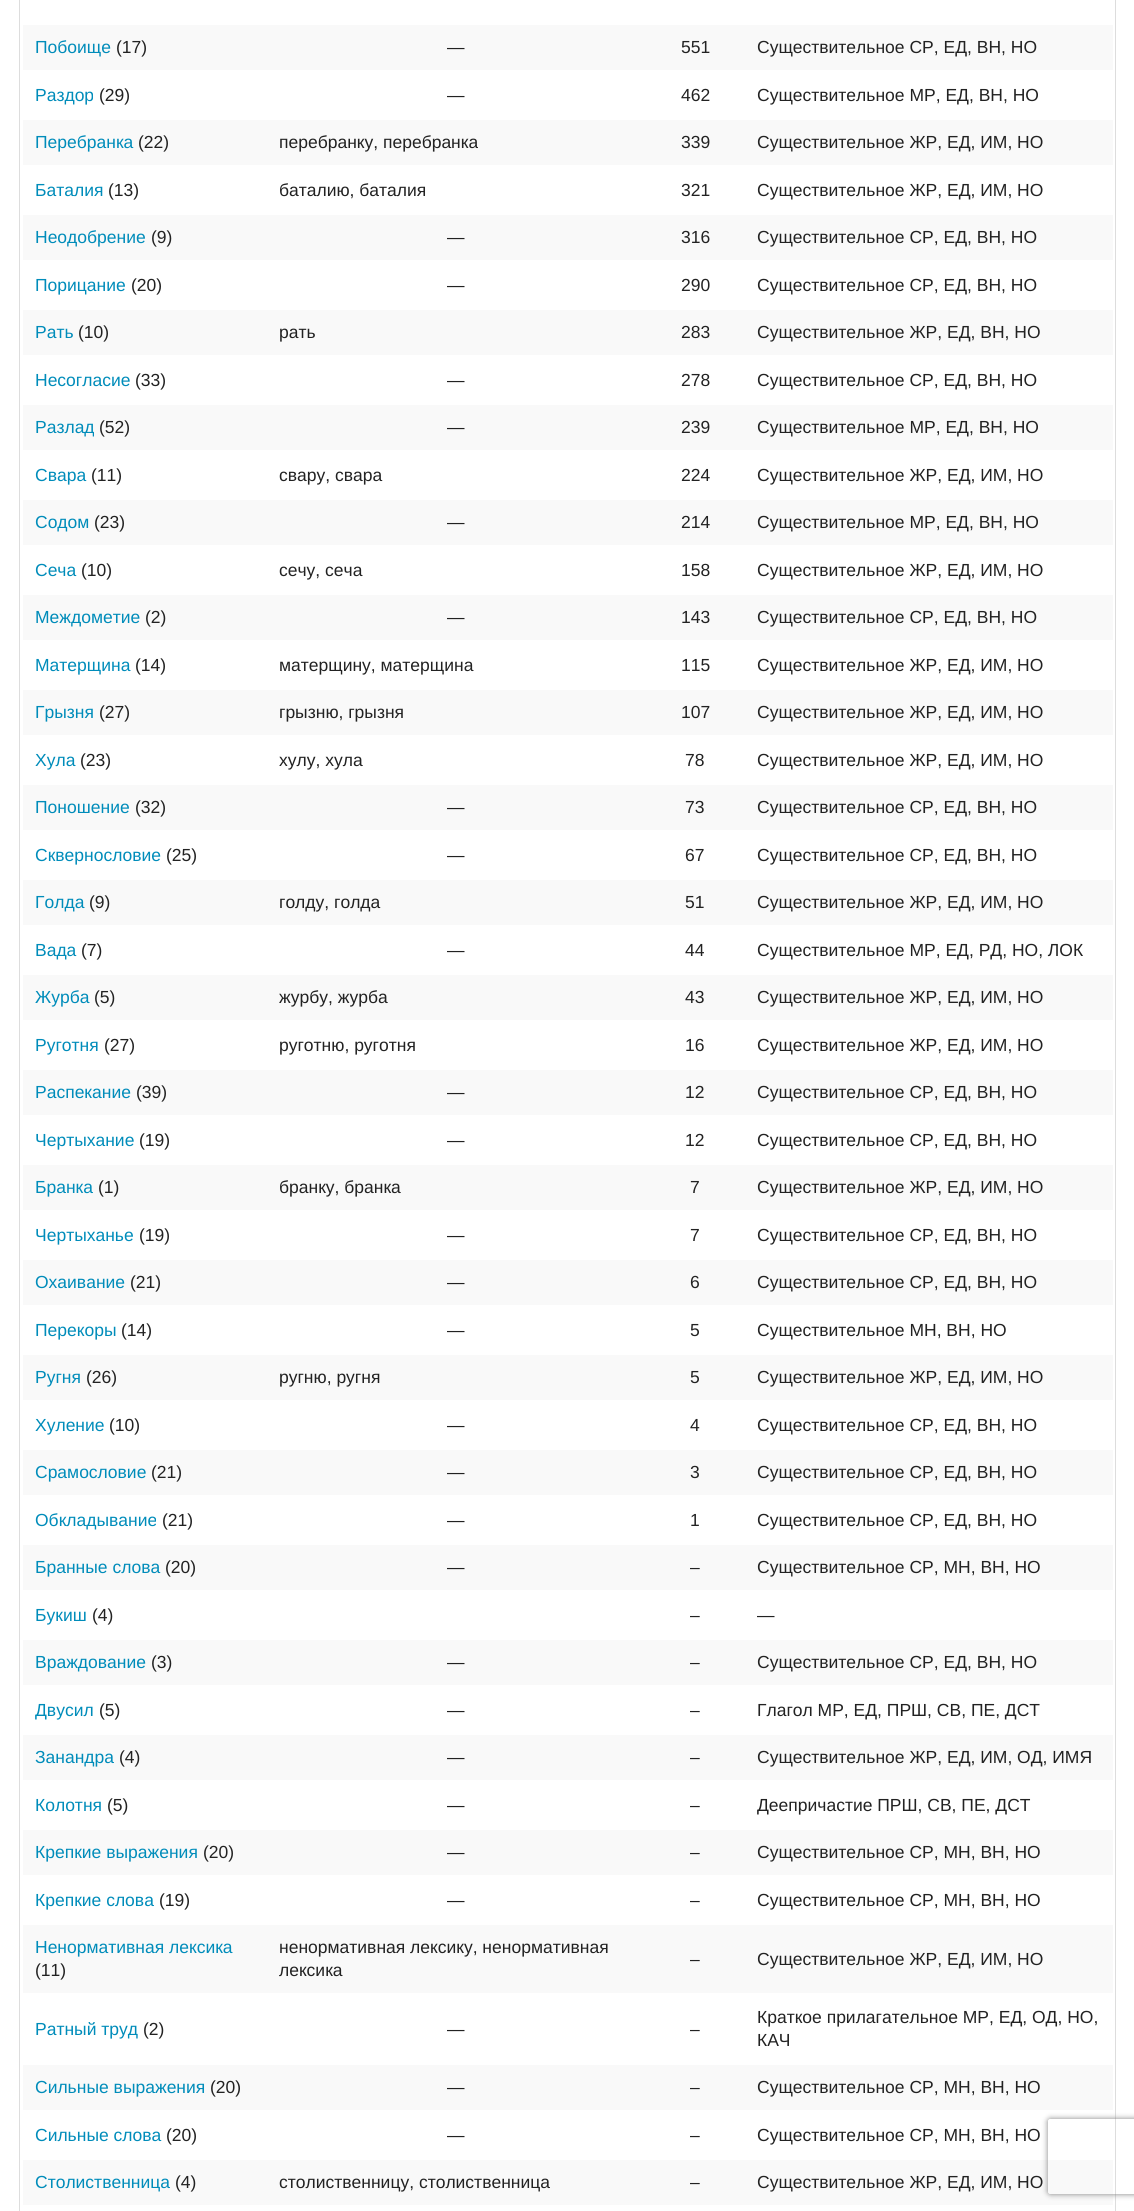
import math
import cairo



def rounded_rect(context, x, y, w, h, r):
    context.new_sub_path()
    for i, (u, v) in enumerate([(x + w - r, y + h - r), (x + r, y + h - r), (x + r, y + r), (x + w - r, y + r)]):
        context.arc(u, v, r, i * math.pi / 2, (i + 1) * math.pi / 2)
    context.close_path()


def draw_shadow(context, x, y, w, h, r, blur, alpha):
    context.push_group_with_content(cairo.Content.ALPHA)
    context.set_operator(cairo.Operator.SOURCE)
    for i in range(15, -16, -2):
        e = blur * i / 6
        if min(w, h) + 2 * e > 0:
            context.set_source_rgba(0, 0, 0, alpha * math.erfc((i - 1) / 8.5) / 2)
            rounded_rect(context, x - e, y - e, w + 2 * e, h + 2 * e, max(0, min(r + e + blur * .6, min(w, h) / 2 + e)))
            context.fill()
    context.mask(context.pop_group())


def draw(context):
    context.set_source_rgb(1, 1, 1)
    context.paint()
    context.rectangle(19.5, -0.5, 1096, 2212)
    context.set_source_rgb(221 / 255, 221 / 255, 221 / 255)
    context.set_line_width(1)
    context.stroke()
    context.set_source_rgb(249 / 255, 249 / 255, 249 / 255)
    context.rectangle(23, 25, 1090, 45)
    context.fill()
    context.rectangle(23, 120, 1090, 45)
    context.fill()
    context.rectangle(23, 215, 1090, 45)
    context.fill()
    context.rectangle(23, 310, 1090, 45)
    context.fill()
    context.rectangle(23, 405, 1090, 45)
    context.fill()
    context.rectangle(23, 500, 1090, 45)
    context.fill()
    context.rectangle(23, 595, 1090, 45)
    context.fill()
    context.rectangle(23, 690, 1090, 45)
    context.fill()
    context.rectangle(23, 785, 1090, 45)
    context.fill()
    context.rectangle(23, 880, 1090, 45)
    context.fill()
    context.rectangle(23, 975, 1090, 45)
    context.fill()
    context.rectangle(23, 1070, 1090, 45)
    context.fill()
    context.rectangle(23, 1165, 1090, 45)
    context.fill()
    context.rectangle(23, 1260, 1090, 45)
    context.fill()
    context.rectangle(23, 1355, 1090, 45)
    context.fill()
    context.rectangle(23, 1450, 1090, 45)
    context.fill()
    context.rectangle(23, 1545, 1090, 45)
    context.fill()
    context.rectangle(23, 1640, 1090, 45)
    context.fill()
    context.rectangle(23, 1735, 1090, 45)
    context.fill()
    context.rectangle(23, 1830, 1090, 45)
    context.fill()
    context.rectangle(23, 1925, 1090, 68)
    context.fill()
    context.rectangle(23, 2065, 1090, 45)
    context.fill()
    context.rectangle(23, 2160, 1090, 45)
    context.fill()
    context.save()
    context.set_fill_rule(cairo.FillRule.EVEN_ODD)
    context.new_path()
    context.move_to(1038, 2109)
    context.line_to(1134, 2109)
    context.line_to(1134, 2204)
    context.line_to(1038, 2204)
    context.close_path()
    context.move_to(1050.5, 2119)
    context.line_to(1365.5, 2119)
    context.curve_to(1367, 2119, 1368, 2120, 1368, 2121.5)
    context.line_to(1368, 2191.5)
    context.curve_to(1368, 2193, 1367, 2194, 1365.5, 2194)
    context.line_to(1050.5, 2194)
    context.curve_to(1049, 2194, 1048, 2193, 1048, 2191.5)
    context.line_to(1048, 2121.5)
    context.curve_to(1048, 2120, 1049, 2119, 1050.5, 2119)
    context.close_path()
    context.clip()
    context.set_source_rgb(128 / 255, 128 / 255, 128 / 255)
    draw_shadow(context, 1048, 2119, 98, 75, 2.5, 3, 1)
    context.restore()
    context.select_font_face("Liberation Sans")
    context.set_font_size(17.5)
    context.set_source_rgb(0, 140 / 255, 186 / 255)
    context.move_to(35, 53)
    context.show_text("Побоище")
    context.set_source_rgb(34 / 255, 34 / 255, 34 / 255)
    context.move_to(116, 53)
    context.show_text("(17)")
    context.move_to(447, 53)
    context.show_text("—")
    context.move_to(681, 53)
    context.show_text("551")
    context.move_to(757, 53)
    context.show_text("Существительное СР, ЕД, ВН, НО")
    context.set_source_rgb(0, 140 / 255, 186 / 255)
    context.move_to(35, 101)
    context.show_text("Раздор")
    context.set_source_rgb(34 / 255, 34 / 255, 34 / 255)
    context.move_to(99, 101)
    context.show_text("(29)")
    context.move_to(447, 101)
    context.show_text("—")
    context.move_to(681, 101)
    context.show_text("462")
    context.move_to(757, 101)
    context.show_text("Существительное МР, ЕД, ВН, НО")
    context.set_source_rgb(0, 140 / 255, 186 / 255)
    context.move_to(35, 148)
    context.show_text("Перебранка")
    context.set_source_rgb(34 / 255, 34 / 255, 34 / 255)
    context.move_to(138, 148)
    context.show_text("(22)")
    context.move_to(279, 148)
    context.show_text("перебранку, перебранка")
    context.move_to(681, 148)
    context.show_text("339")
    context.move_to(757, 148)
    context.show_text("Существительное ЖР, ЕД, ИМ, НО")
    context.set_source_rgb(0, 140 / 255, 186 / 255)
    context.move_to(35, 196)
    context.show_text("Баталия")
    context.set_source_rgb(34 / 255, 34 / 255, 34 / 255)
    context.move_to(108, 196)
    context.show_text("(13)")
    context.move_to(279, 196)
    context.show_text("баталию, баталия")
    context.move_to(681, 196)
    context.show_text("321")
    context.move_to(757, 196)
    context.show_text("Существительное ЖР, ЕД, ИМ, НО")
    context.set_source_rgb(0, 140 / 255, 186 / 255)
    context.move_to(35, 243)
    context.show_text("Неодобрение")
    context.set_source_rgb(34 / 255, 34 / 255, 34 / 255)
    context.move_to(151, 243)
    context.show_text("(9)")
    context.move_to(447, 243)
    context.show_text("—")
    context.move_to(681, 243)
    context.show_text("316")
    context.move_to(757, 243)
    context.show_text("Существительное СР, ЕД, ВН, НО")
    context.set_source_rgb(0, 140 / 255, 186 / 255)
    context.move_to(35, 291)
    context.show_text("Порицание")
    context.set_source_rgb(34 / 255, 34 / 255, 34 / 255)
    context.move_to(131, 291)
    context.show_text("(20)")
    context.move_to(447, 291)
    context.show_text("—")
    context.move_to(681, 291)
    context.show_text("290")
    context.move_to(757, 291)
    context.show_text("Существительное СР, ЕД, ВН, НО")
    context.set_source_rgb(0, 140 / 255, 186 / 255)
    context.move_to(35, 338)
    context.show_text("Рать")
    context.set_source_rgb(34 / 255, 34 / 255, 34 / 255)
    context.move_to(78, 338)
    context.show_text("(10)")
    context.move_to(279, 338)
    context.show_text("рать")
    context.move_to(681, 338)
    context.show_text("283")
    context.move_to(757, 338)
    context.show_text("Существительное ЖР, ЕД, ВН, НО")
    context.set_source_rgb(0, 140 / 255, 186 / 255)
    context.move_to(35, 386)
    context.show_text("Несогласие")
    context.set_source_rgb(34 / 255, 34 / 255, 34 / 255)
    context.move_to(135, 386)
    context.show_text("(33)")
    context.move_to(447, 386)
    context.show_text("—")
    context.move_to(681, 386)
    context.show_text("278")
    context.move_to(757, 386)
    context.show_text("Существительное СР, ЕД, ВН, НО")
    context.set_source_rgb(0, 140 / 255, 186 / 255)
    context.move_to(35, 433)
    context.show_text("Разлад")
    context.set_source_rgb(34 / 255, 34 / 255, 34 / 255)
    context.move_to(99, 433)
    context.show_text("(52)")
    context.move_to(447, 433)
    context.show_text("—")
    context.move_to(681, 433)
    context.show_text("239")
    context.move_to(757, 433)
    context.show_text("Существительное МР, ЕД, ВН, НО")
    context.set_source_rgb(0, 140 / 255, 186 / 255)
    context.move_to(35, 481)
    context.show_text("Свара")
    context.set_source_rgb(34 / 255, 34 / 255, 34 / 255)
    context.move_to(91, 481)
    context.show_text("(11)")
    context.move_to(279, 481)
    context.show_text("свару, свара")
    context.move_to(681, 481)
    context.show_text("224")
    context.move_to(757, 481)
    context.show_text("Существительное ЖР, ЕД, ИМ, НО")
    context.set_source_rgb(0, 140 / 255, 186 / 255)
    context.move_to(35, 528)
    context.show_text("Содом")
    context.set_source_rgb(34 / 255, 34 / 255, 34 / 255)
    context.move_to(94, 528)
    context.show_text("(23)")
    context.move_to(447, 528)
    context.show_text("—")
    context.move_to(681, 528)
    context.show_text("214")
    context.move_to(757, 528)
    context.show_text("Существительное МР, ЕД, ВН, НО")
    context.set_source_rgb(0, 140 / 255, 186 / 255)
    context.move_to(35, 576)
    context.show_text("Сеча")
    context.set_source_rgb(34 / 255, 34 / 255, 34 / 255)
    context.move_to(81, 576)
    context.show_text("(10)")
    context.move_to(279, 576)
    context.show_text("сечу, сеча")
    context.move_to(681, 576)
    context.show_text("158")
    context.move_to(757, 576)
    context.show_text("Существительное ЖР, ЕД, ИМ, НО")
    context.set_source_rgb(0, 140 / 255, 186 / 255)
    context.move_to(35, 623)
    context.show_text("Междометие")
    context.set_source_rgb(34 / 255, 34 / 255, 34 / 255)
    context.move_to(145, 623)
    context.show_text("(2)")
    context.move_to(447, 623)
    context.show_text("—")
    context.move_to(681, 623)
    context.show_text("143")
    context.move_to(757, 623)
    context.show_text("Существительное СР, ЕД, ВН, НО")
    context.set_source_rgb(0, 140 / 255, 186 / 255)
    context.move_to(35, 671)
    context.show_text("Матерщина")
    context.set_source_rgb(34 / 255, 34 / 255, 34 / 255)
    context.move_to(135, 671)
    context.show_text("(14)")
    context.move_to(279, 671)
    context.show_text("матерщину, матерщина")
    context.move_to(681, 671)
    context.show_text("115")
    context.move_to(757, 671)
    context.show_text("Существительное ЖР, ЕД, ИМ, НО")
    context.set_source_rgb(0, 140 / 255, 186 / 255)
    context.move_to(35, 718)
    context.show_text("Грызня")
    context.set_source_rgb(34 / 255, 34 / 255, 34 / 255)
    context.move_to(99, 718)
    context.show_text("(27)")
    context.move_to(279, 718)
    context.show_text("грызню, грызня")
    context.move_to(681, 718)
    context.show_text("107")
    context.move_to(757, 718)
    context.show_text("Существительное ЖР, ЕД, ИМ, НО")
    context.set_source_rgb(0, 140 / 255, 186 / 255)
    context.move_to(35, 766)
    context.show_text("Хула")
    context.set_source_rgb(34 / 255, 34 / 255, 34 / 255)
    context.move_to(80, 766)
    context.show_text("(23)")
    context.move_to(279, 766)
    context.show_text("хулу, хула")
    context.move_to(685, 766)
    context.show_text("78")
    context.move_to(757, 766)
    context.show_text("Существительное ЖР, ЕД, ИМ, НО")
    context.set_source_rgb(0, 140 / 255, 186 / 255)
    context.move_to(35, 813)
    context.show_text("Поношение")
    context.set_source_rgb(34 / 255, 34 / 255, 34 / 255)
    context.move_to(135, 813)
    context.show_text("(32)")
    context.move_to(447, 813)
    context.show_text("—")
    context.move_to(685, 813)
    context.show_text("73")
    context.move_to(757, 813)
    context.show_text("Существительное СР, ЕД, ВН, НО")
    context.set_source_rgb(0, 140 / 255, 186 / 255)
    context.move_to(35, 861)
    context.show_text("Сквернословие")
    context.set_source_rgb(34 / 255, 34 / 255, 34 / 255)
    context.move_to(166, 861)
    context.show_text("(25)")
    context.move_to(447, 861)
    context.show_text("—")
    context.move_to(685, 861)
    context.show_text("67")
    context.move_to(757, 861)
    context.show_text("Существительное СР, ЕД, ВН, НО")
    context.set_source_rgb(0, 140 / 255, 186 / 255)
    context.move_to(35, 908)
    context.show_text("Голда")
    context.set_source_rgb(34 / 255, 34 / 255, 34 / 255)
    context.move_to(89, 908)
    context.show_text("(9)")
    context.move_to(279, 908)
    context.show_text("голду, голда")
    context.move_to(685, 908)
    context.show_text("51")
    context.move_to(757, 908)
    context.show_text("Существительное ЖР, ЕД, ИМ, НО")
    context.set_source_rgb(0, 140 / 255, 186 / 255)
    context.move_to(35, 956)
    context.show_text("Вада")
    context.set_source_rgb(34 / 255, 34 / 255, 34 / 255)
    context.move_to(81, 956)
    context.show_text("(7)")
    context.move_to(447, 956)
    context.show_text("—")
    context.move_to(685, 956)
    context.show_text("44")
    context.move_to(757, 956)
    context.show_text("Существительное МР, ЕД, РД, НО, ЛОК")
    context.set_source_rgb(0, 140 / 255, 186 / 255)
    context.move_to(35, 1003)
    context.show_text("Журба")
    context.set_source_rgb(34 / 255, 34 / 255, 34 / 255)
    context.move_to(94, 1003)
    context.show_text("(5)")
    context.move_to(279, 1003)
    context.show_text("журбу, журба")
    context.move_to(685, 1003)
    context.show_text("43")
    context.move_to(757, 1003)
    context.show_text("Существительное ЖР, ЕД, ИМ, НО")
    context.set_source_rgb(0, 140 / 255, 186 / 255)
    context.move_to(35, 1051)
    context.show_text("Руготня")
    context.set_source_rgb(34 / 255, 34 / 255, 34 / 255)
    context.move_to(104, 1051)
    context.show_text("(27)")
    context.move_to(279, 1051)
    context.show_text("руготню, руготня")
    context.move_to(685, 1051)
    context.show_text("16")
    context.move_to(757, 1051)
    context.show_text("Существительное ЖР, ЕД, ИМ, НО")
    context.set_source_rgb(0, 140 / 255, 186 / 255)
    context.move_to(35, 1098)
    context.show_text("Распекание")
    context.set_source_rgb(34 / 255, 34 / 255, 34 / 255)
    context.move_to(136, 1098)
    context.show_text("(39)")
    context.move_to(447, 1098)
    context.show_text("—")
    context.move_to(685, 1098)
    context.show_text("12")
    context.move_to(757, 1098)
    context.show_text("Существительное СР, ЕД, ВН, НО")
    context.set_source_rgb(0, 140 / 255, 186 / 255)
    context.move_to(35, 1146)
    context.show_text("Чертыхание")
    context.set_source_rgb(34 / 255, 34 / 255, 34 / 255)
    context.move_to(139, 1146)
    context.show_text("(19)")
    context.move_to(447, 1146)
    context.show_text("—")
    context.move_to(685, 1146)
    context.show_text("12")
    context.move_to(757, 1146)
    context.show_text("Существительное СР, ЕД, ВН, НО")
    context.set_source_rgb(0, 140 / 255, 186 / 255)
    context.move_to(35, 1193)
    context.show_text("Бранка")
    context.set_source_rgb(34 / 255, 34 / 255, 34 / 255)
    context.move_to(98, 1193)
    context.show_text("(1)")
    context.move_to(279, 1193)
    context.show_text("бранку, бранка")
    context.move_to(690, 1193)
    context.show_text("7")
    context.move_to(757, 1193)
    context.show_text("Существительное ЖР, ЕД, ИМ, НО")
    context.set_source_rgb(0, 140 / 255, 186 / 255)
    context.move_to(35, 1241)
    context.show_text("Чертыханье")
    context.set_source_rgb(34 / 255, 34 / 255, 34 / 255)
    context.move_to(139, 1241)
    context.show_text("(19)")
    context.move_to(447, 1241)
    context.show_text("—")
    context.move_to(690, 1241)
    context.show_text("7")
    context.move_to(757, 1241)
    context.show_text("Существительное СР, ЕД, ВН, НО")
    context.set_source_rgb(0, 140 / 255, 186 / 255)
    context.move_to(35, 1288)
    context.show_text("Охаивание")
    context.set_source_rgb(34 / 255, 34 / 255, 34 / 255)
    context.move_to(130, 1288)
    context.show_text("(21)")
    context.move_to(447, 1288)
    context.show_text("—")
    context.move_to(690, 1288)
    context.show_text("6")
    context.move_to(757, 1288)
    context.show_text("Существительное СР, ЕД, ВН, НО")
    context.set_source_rgb(0, 140 / 255, 186 / 255)
    context.move_to(35, 1336)
    context.show_text("Перекоры")
    context.set_source_rgb(34 / 255, 34 / 255, 34 / 255)
    context.move_to(121, 1336)
    context.show_text("(14)")
    context.move_to(447, 1336)
    context.show_text("—")
    context.move_to(690, 1336)
    context.show_text("5")
    context.move_to(757, 1336)
    context.show_text("Существительное МН, ВН, НО")
    context.set_source_rgb(0, 140 / 255, 186 / 255)
    context.move_to(35, 1383)
    context.show_text("Ругня")
    context.set_source_rgb(34 / 255, 34 / 255, 34 / 255)
    context.move_to(86, 1383)
    context.show_text("(26)")
    context.move_to(279, 1383)
    context.show_text("ругню, ругня")
    context.move_to(690, 1383)
    context.show_text("5")
    context.move_to(757, 1383)
    context.show_text("Существительное ЖР, ЕД, ИМ, НО")
    context.set_source_rgb(0, 140 / 255, 186 / 255)
    context.move_to(35, 1431)
    context.show_text("Хуление")
    context.set_source_rgb(34 / 255, 34 / 255, 34 / 255)
    context.move_to(109, 1431)
    context.show_text("(10)")
    context.move_to(447, 1431)
    context.show_text("—")
    context.move_to(690, 1431)
    context.show_text("4")
    context.move_to(757, 1431)
    context.show_text("Существительное СР, ЕД, ВН, НО")
    context.set_source_rgb(0, 140 / 255, 186 / 255)
    context.move_to(35, 1478)
    context.show_text("Срамословие")
    context.set_source_rgb(34 / 255, 34 / 255, 34 / 255)
    context.move_to(151, 1478)
    context.show_text("(21)")
    context.move_to(447, 1478)
    context.show_text("—")
    context.move_to(690, 1478)
    context.show_text("3")
    context.move_to(757, 1478)
    context.show_text("Существительное СР, ЕД, ВН, НО")
    context.set_source_rgb(0, 140 / 255, 186 / 255)
    context.move_to(35, 1526)
    context.show_text("Обкладывание")
    context.set_source_rgb(34 / 255, 34 / 255, 34 / 255)
    context.move_to(162, 1526)
    context.show_text("(21)")
    context.move_to(447, 1526)
    context.show_text("—")
    context.move_to(690, 1526)
    context.show_text("1")
    context.move_to(757, 1526)
    context.show_text("Существительное СР, ЕД, ВН, НО")
    context.set_source_rgb(0, 140 / 255, 186 / 255)
    context.move_to(35, 1573)
    context.show_text("Бранные слова")
    context.set_source_rgb(34 / 255, 34 / 255, 34 / 255)
    context.move_to(165, 1573)
    context.show_text("(20)")
    context.move_to(447, 1573)
    context.show_text("—")
    context.move_to(690, 1573)
    context.show_text("–")
    context.move_to(757, 1573)
    context.show_text("Существительное СР, МН, ВН, НО")
    context.set_source_rgb(0, 140 / 255, 186 / 255)
    context.move_to(35, 1621)
    context.show_text("Букиш")
    context.set_source_rgb(34 / 255, 34 / 255, 34 / 255)
    context.move_to(92, 1621)
    context.show_text("(4)")
    context.move_to(690, 1621)
    context.show_text("–")
    context.move_to(757, 1621)
    context.show_text("—")
    context.set_source_rgb(0, 140 / 255, 186 / 255)
    context.move_to(35, 1668)
    context.show_text("Враждование")
    context.set_source_rgb(34 / 255, 34 / 255, 34 / 255)
    context.move_to(151, 1668)
    context.show_text("(3)")
    context.move_to(447, 1668)
    context.show_text("—")
    context.move_to(690, 1668)
    context.show_text("–")
    context.move_to(757, 1668)
    context.show_text("Существительное СР, ЕД, ВН, НО")
    context.set_source_rgb(0, 140 / 255, 186 / 255)
    context.move_to(35, 1716)
    context.show_text("Двусил")
    context.set_source_rgb(34 / 255, 34 / 255, 34 / 255)
    context.move_to(99, 1716)
    context.show_text("(5)")
    context.move_to(447, 1716)
    context.show_text("—")
    context.move_to(690, 1716)
    context.show_text("–")
    context.move_to(757, 1716)
    context.show_text("Глагол МР, ЕД, ПРШ, СВ, ПЕ, ДСТ")
    context.set_source_rgb(0, 140 / 255, 186 / 255)
    context.move_to(35, 1763)
    context.show_text("Занандра")
    context.set_source_rgb(34 / 255, 34 / 255, 34 / 255)
    context.move_to(119, 1763)
    context.show_text("(4)")
    context.move_to(447, 1763)
    context.show_text("—")
    context.move_to(690, 1763)
    context.show_text("–")
    context.move_to(757, 1763)
    context.show_text("Существительное ЖР, ЕД, ИМ, ОД, ИМЯ")
    context.set_source_rgb(0, 140 / 255, 186 / 255)
    context.move_to(35, 1811)
    context.show_text("Колотня")
    context.set_source_rgb(34 / 255, 34 / 255, 34 / 255)
    context.move_to(107, 1811)
    context.show_text("(5)")
    context.move_to(447, 1811)
    context.show_text("—")
    context.move_to(690, 1811)
    context.show_text("–")
    context.move_to(757, 1811)
    context.show_text("Деепричастие ПРШ, СВ, ПЕ, ДСТ")
    context.set_source_rgb(0, 140 / 255, 186 / 255)
    context.move_to(35, 1858)
    context.show_text("Крепкие выражения")
    context.set_source_rgb(34 / 255, 34 / 255, 34 / 255)
    context.move_to(203, 1858)
    context.show_text("(20)")
    context.move_to(447, 1858)
    context.show_text("—")
    context.move_to(690, 1858)
    context.show_text("–")
    context.move_to(757, 1858)
    context.show_text("Существительное СР, МН, ВН, НО")
    context.set_source_rgb(0, 140 / 255, 186 / 255)
    context.move_to(35, 1906)
    context.show_text("Крепкие слова")
    context.set_source_rgb(34 / 255, 34 / 255, 34 / 255)
    context.move_to(159, 1906)
    context.show_text("(19)")
    context.move_to(447, 1906)
    context.show_text("—")
    context.move_to(690, 1906)
    context.show_text("–")
    context.move_to(757, 1906)
    context.show_text("Существительное СР, МН, ВН, НО")
    context.set_source_rgb(0, 140 / 255, 186 / 255)
    context.move_to(35, 1953)
    context.show_text("Ненормативная лексика")
    context.set_source_rgb(34 / 255, 34 / 255, 34 / 255)
    context.move_to(35, 1976)
    context.show_text("(11)")
    context.move_to(279, 1953)
    context.show_text("ненормативная лексику, ненормативная")
    context.move_to(279, 1976)
    context.show_text("лексика")
    context.move_to(690, 1965)
    context.show_text("–")
    context.move_to(757, 1965)
    context.show_text("Существительное ЖР, ЕД, ИМ, НО")
    context.set_source_rgb(0, 140 / 255, 186 / 255)
    context.move_to(35, 2035)
    context.show_text("Ратный труд")
    context.set_source_rgb(34 / 255, 34 / 255, 34 / 255)
    context.move_to(143, 2035)
    context.show_text("(2)")
    context.move_to(447, 2035)
    context.show_text("—")
    context.move_to(690, 2035)
    context.show_text("–")
    context.move_to(757, 2023)
    context.show_text("Краткое прилагательное МР, ЕД, ОД, НО,")
    context.move_to(757, 2046)
    context.show_text("КАЧ")
    context.set_source_rgb(0, 140 / 255, 186 / 255)
    context.move_to(35, 2093)
    context.show_text("Сильные выражения")
    context.set_source_rgb(34 / 255, 34 / 255, 34 / 255)
    context.move_to(210, 2093)
    context.show_text("(20)")
    context.move_to(447, 2093)
    context.show_text("—")
    context.move_to(690, 2093)
    context.show_text("–")
    context.move_to(757, 2093)
    context.show_text("Существительное СР, МН, ВН, НО")
    context.set_source_rgb(0, 140 / 255, 186 / 255)
    context.move_to(35, 2141)
    context.show_text("Сильные слова")
    context.set_source_rgb(34 / 255, 34 / 255, 34 / 255)
    context.move_to(166, 2141)
    context.show_text("(20)")
    context.move_to(447, 2141)
    context.show_text("—")
    context.move_to(690, 2141)
    context.show_text("–")
    context.move_to(757, 2141)
    context.show_text("Существительное СР, МН, ВН, НО")
    context.set_source_rgb(0, 140 / 255, 186 / 255)
    context.move_to(35, 2188)
    context.show_text("Столиственница")
    context.set_source_rgb(34 / 255, 34 / 255, 34 / 255)
    context.move_to(175, 2188)
    context.show_text("(4)")
    context.move_to(279, 2188)
    context.show_text("столиственницу, столиственница")
    context.move_to(690, 2188)
    context.show_text("–")
    context.move_to(757, 2188)
    context.show_text("Существительное ЖР, ЕД, ИМ, НО")


surface = cairo.ImageSurface(cairo.Format.RGB24, 1134, 2211)
context = cairo.Context(surface)
options = cairo.FontOptions()
options.set_hint_metrics(cairo.HintMetrics.OFF)
options.set_hint_style(cairo.HintStyle.NONE)
context.set_font_options(options)
context.set_miter_limit(4)
draw(context)
surface.write_to_png("out.png")
